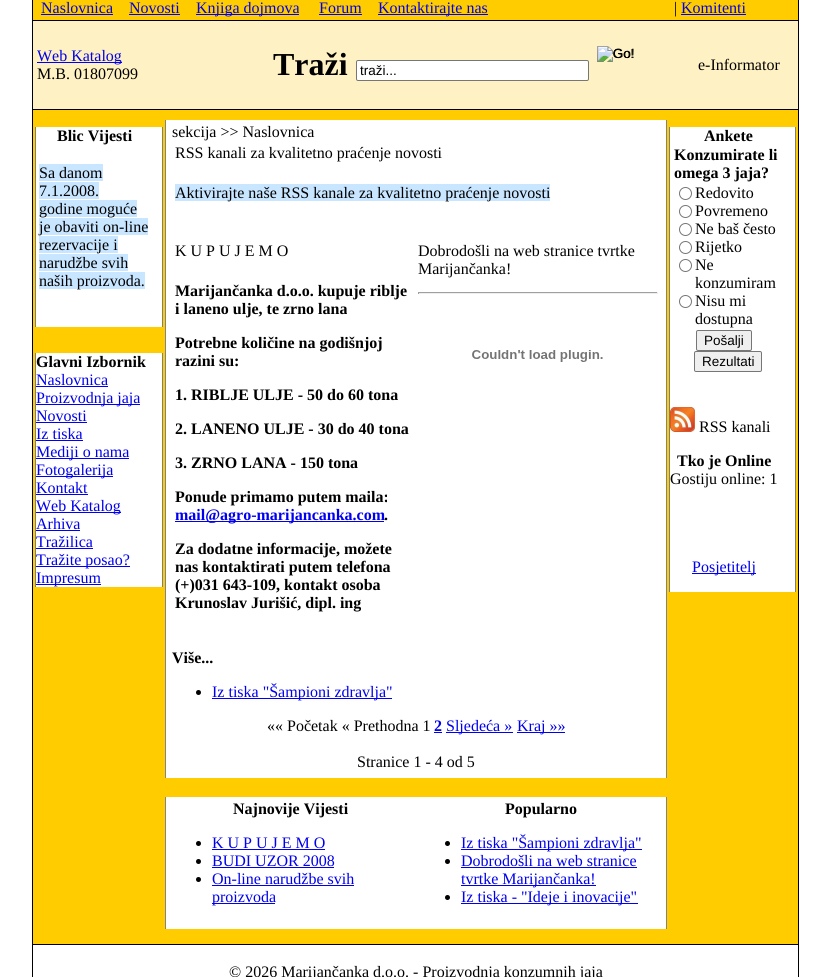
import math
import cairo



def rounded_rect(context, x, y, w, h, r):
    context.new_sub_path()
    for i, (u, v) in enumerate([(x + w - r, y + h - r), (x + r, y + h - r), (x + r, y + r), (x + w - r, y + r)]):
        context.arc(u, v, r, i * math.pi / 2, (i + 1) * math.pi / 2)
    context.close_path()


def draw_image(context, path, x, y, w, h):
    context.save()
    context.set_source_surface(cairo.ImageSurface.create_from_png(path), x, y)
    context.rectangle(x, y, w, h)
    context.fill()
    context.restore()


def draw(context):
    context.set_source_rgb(1, 1, 1)
    context.paint()
    context.set_source_rgb(0, 0, 0)
    context.rectangle(32, 0, 767, 977)
    context.fill()
    context.set_source_rgb(1, 204 / 255, 0)
    context.rectangle(33, 0, 765, 944)
    context.fill()
    context.set_source_rgb(0, 0, 0)
    context.rectangle(33, 20, 765, 1)
    context.fill()
    context.set_source_rgb(0, 0, 238 / 255)
    context.rectangle(41, 14, 72, 1)
    context.fill()
    context.rectangle(129, 14, 51, 1)
    context.fill()
    context.rectangle(196, 14, 103, 1)
    context.fill()
    context.rectangle(319, 14, 43, 1)
    context.fill()
    context.rectangle(378, 14, 110, 1)
    context.fill()
    context.rectangle(681, 14, 65, 1)
    context.fill()
    context.set_source_rgb(254 / 255, 241 / 255, 195 / 255)
    context.rectangle(33, 21, 765, 88)
    context.fill()
    context.set_source_rgb(0, 0, 238 / 255)
    context.rectangle(37, 62, 85, 1)
    context.fill()
    context.set_source_rgb(1, 1, 1)
    rounded_rect(context, 356.5, 60.5, 232, 20, 1.5)
    context.fill_preserve()
    context.set_source_rgb(118 / 255, 118 / 255, 118 / 255)
    context.set_line_width(1)
    context.stroke()
    draw_image(context, "images/1.png", 597, 46, 36, 16)
    context.set_source_rgb(0, 0, 0)
    context.rectangle(33, 109, 765, 1)
    context.fill()
    context.set_source_rgb(1, 1, 1)
    context.rectangle(36, 127, 126, 200)
    context.fill()
    context.set_source_rgb(127 / 255, 127 / 255, 127 / 255)
    context.rectangle(35, 127, 1, 200)
    context.fill()
    context.set_source_rgb(200 / 255, 230 / 255, 1)
    context.rectangle(39, 164, 64, 17)
    context.fill()
    context.rectangle(39, 182, 60, 17)
    context.fill()
    context.rectangle(39, 200, 98, 17)
    context.fill()
    context.rectangle(39, 218, 109, 17)
    context.fill()
    context.rectangle(39, 236, 79, 17)
    context.fill()
    context.rectangle(39, 254, 89, 17)
    context.fill()
    context.rectangle(39, 272, 106, 17)
    context.fill()
    context.set_source_rgb(127 / 255, 127 / 255, 127 / 255)
    context.rectangle(162, 127, 1, 200)
    context.fill()
    context.set_source_rgb(1, 1, 1)
    context.rectangle(36, 353, 126, 234)
    context.fill()
    context.set_source_rgb(127 / 255, 127 / 255, 127 / 255)
    context.rectangle(35, 353, 1, 234)
    context.fill()
    context.set_source_rgb(0, 0, 238 / 255)
    context.rectangle(36, 386, 72, 1)
    context.fill()
    context.rectangle(36, 404, 104, 1)
    context.fill()
    context.rectangle(36, 422, 51, 1)
    context.fill()
    context.rectangle(36, 440, 47, 1)
    context.fill()
    context.rectangle(36, 458, 93, 1)
    context.fill()
    context.rectangle(36, 476, 77, 1)
    context.fill()
    context.rectangle(36, 494, 52, 1)
    context.fill()
    context.rectangle(36, 512, 85, 1)
    context.fill()
    context.rectangle(36, 530, 44, 1)
    context.fill()
    context.rectangle(36, 548, 57, 1)
    context.fill()
    context.rectangle(36, 566, 94, 1)
    context.fill()
    context.rectangle(36, 584, 65, 1)
    context.fill()
    context.set_source_rgb(127 / 255, 127 / 255, 127 / 255)
    context.rectangle(162, 353, 1, 234)
    context.fill()
    context.set_source_rgb(1, 1, 1)
    context.rectangle(166, 120, 500, 658)
    context.fill()
    context.set_source_rgb(131 / 255, 131 / 255, 131 / 255)
    context.rectangle(666, 120, 1, 658)
    context.fill()
    context.rectangle(165, 120, 1, 658)
    context.fill()
    context.set_source_rgb(200 / 255, 230 / 255, 1)
    context.rectangle(175, 184, 375, 17)
    context.fill()
    context.set_source_rgb(0, 0, 238 / 255)
    context.rectangle(175, 521, 209, 1)
    context.fill()
    context.set_source_rgb(159 / 255, 159 / 255, 159 / 255)
    context.rectangle(418, 292, 240, 1)
    context.fill()
    context.set_source_rgb(238 / 255, 238 / 255, 238 / 255)
    context.rectangle(657, 292, 1, 2)
    context.fill()
    context.rectangle(418, 293, 240, 1)
    context.fill()
    context.set_source_rgb(159 / 255, 159 / 255, 159 / 255)
    context.rectangle(418, 292, 1, 2)
    context.fill()
    draw_image(context, "images/2.png", 472, 350, 131, 12)
    context.set_source_rgb(0, 0, 0)
    context.arc(198.5, 692.5, 2.5, 0, 2 * math.pi)
    context.fill()
    context.set_source_rgb(0, 0, 238 / 255)
    context.rectangle(212, 698, 180, 1)
    context.fill()
    context.rectangle(434, 732, 8, 1)
    context.fill()
    context.rectangle(446, 732, 67, 1)
    context.fill()
    context.rectangle(517, 732, 48, 1)
    context.fill()
    context.set_source_rgb(1, 1, 1)
    context.rectangle(166, 797, 500, 132)
    context.fill()
    context.set_source_rgb(131 / 255, 131 / 255, 131 / 255)
    context.rectangle(666, 797, 1, 132)
    context.fill()
    context.rectangle(165, 797, 1, 132)
    context.fill()
    context.set_source_rgb(0, 0, 0)
    context.arc(198.5, 843.5, 2.5, 0, 2 * math.pi)
    context.fill()
    context.set_source_rgb(0, 0, 238 / 255)
    context.rectangle(212, 849, 113, 1)
    context.fill()
    context.set_source_rgb(0, 0, 0)
    context.arc(198.5, 861.5, 2.5, 0, 2 * math.pi)
    context.fill()
    context.set_source_rgb(0, 0, 238 / 255)
    context.rectangle(212, 867, 122, 1)
    context.fill()
    context.set_source_rgb(0, 0, 0)
    context.arc(198.5, 879.5, 2.5, 0, 2 * math.pi)
    context.fill()
    context.set_source_rgb(0, 0, 238 / 255)
    context.rectangle(212, 885, 142, 1)
    context.fill()
    context.rectangle(212, 903, 63, 1)
    context.fill()
    context.set_source_rgb(0, 0, 0)
    context.arc(447.5, 843.5, 2.5, 0, 2 * math.pi)
    context.fill()
    context.set_source_rgb(0, 0, 238 / 255)
    context.rectangle(461, 849, 181, 1)
    context.fill()
    context.set_source_rgb(0, 0, 0)
    context.arc(447.5, 861.5, 2.5, 0, 2 * math.pi)
    context.fill()
    context.set_source_rgb(0, 0, 238 / 255)
    context.rectangle(461, 867, 176, 1)
    context.fill()
    context.rectangle(461, 885, 135, 1)
    context.fill()
    context.set_source_rgb(0, 0, 0)
    context.arc(447.5, 897.5, 2.5, 0, 2 * math.pi)
    context.fill()
    context.set_source_rgb(0, 0, 238 / 255)
    context.rectangle(461, 903, 177, 1)
    context.fill()
    context.set_source_rgb(1, 1, 1)
    context.rectangle(670, 127, 125, 465)
    context.fill()
    context.set_source_rgb(127 / 255, 127 / 255, 127 / 255)
    context.rectangle(669, 127, 1, 465)
    context.fill()
    context.arc(685.5, 193.5, 6, 0, 2 * math.pi)
    context.set_source_rgb(118 / 255, 118 / 255, 118 / 255)
    context.stroke()
    context.arc(685.5, 211.5, 6, 0, 2 * math.pi)
    context.stroke()
    context.arc(685.5, 229.5, 6, 0, 2 * math.pi)
    context.stroke()
    context.arc(685.5, 247.5, 6, 0, 2 * math.pi)
    context.stroke()
    context.arc(685.5, 265.5, 6, 0, 2 * math.pi)
    context.stroke()
    context.arc(685.5, 301.5, 6, 0, 2 * math.pi)
    context.stroke()
    context.set_source_rgb(239 / 255, 239 / 255, 239 / 255)
    rounded_rect(context, 696.5, 330.5, 55, 20, 1.5)
    context.fill_preserve()
    context.set_source_rgb(118 / 255, 118 / 255, 118 / 255)
    context.stroke()
    context.set_source_rgb(239 / 255, 239 / 255, 239 / 255)
    rounded_rect(context, 694.5, 351.5, 67, 20, 1.5)
    context.fill_preserve()
    context.set_source_rgb(118 / 255, 118 / 255, 118 / 255)
    context.stroke()
    draw_image(context, "images/3.png", 670, 407, 25, 25)
    context.set_source_rgb(0, 0, 238 / 255)
    context.rectangle(692, 573, 64, 1)
    context.fill()
    context.set_source_rgb(127 / 255, 127 / 255, 127 / 255)
    context.rectangle(795, 127, 1, 465)
    context.fill()
    context.set_source_rgb(1, 1, 1)
    context.rectangle(33, 945, 765, 32)
    context.fill()
    context.select_font_face("Liberation Serif")
    context.set_font_size(16)
    context.set_source_rgb(0, 0, 238 / 255)
    context.move_to(41, 13)
    context.show_text("Naslovnica")
    context.move_to(129, 13)
    context.show_text("Novosti")
    context.move_to(196, 13)
    context.show_text("Knjiga dojmova")
    context.move_to(319, 13)
    context.show_text("Forum")
    context.move_to(378, 13)
    context.show_text("Kontaktirajte nas")
    context.set_source_rgb(0, 0, 0)
    context.move_to(674, 13)
    context.show_text("|")
    context.set_source_rgb(0, 0, 238 / 255)
    context.move_to(681, 13)
    context.show_text("Komitenti")
    context.move_to(37, 61)
    context.show_text("Web Katalog")
    context.set_source_rgb(0, 0, 0)
    context.move_to(37, 79)
    context.show_text("M.B. 01807099")
    context.select_font_face("Liberation Serif", cairo.FontSlant.NORMAL, cairo.FontWeight.BOLD)
    context.set_font_size(32)
    context.move_to(273, 75)
    context.show_text("Traži")
    context.select_font_face("Liberation Sans")
    context.set_font_size(13.5)
    context.move_to(360, 75)
    context.show_text("traži...")
    context.move_to(613, 58)
    context.show_text("Go!")
    context.select_font_face("Liberation Serif")
    context.set_font_size(16)
    context.move_to(698, 70)
    context.show_text("e-Informator")
    context.select_font_face("Liberation Serif", cairo.FontSlant.NORMAL, cairo.FontWeight.BOLD)
    context.move_to(57, 141)
    context.show_text("Blic Vijesti")
    context.select_font_face("Liberation Serif")
    context.move_to(39, 178)
    context.show_text("Sa danom")
    context.move_to(39, 196)
    context.show_text("7.1.2008.")
    context.move_to(39, 214)
    context.show_text("godine moguće")
    context.move_to(39, 232)
    context.show_text("je obaviti on-line")
    context.move_to(39, 250)
    context.show_text("rezervacije i")
    context.move_to(39, 268)
    context.show_text("narudžbe svih")
    context.move_to(39, 286)
    context.show_text("naših proizvoda.")
    context.select_font_face("Liberation Serif", cairo.FontSlant.NORMAL, cairo.FontWeight.BOLD)
    context.move_to(36, 367)
    context.show_text("Glavni Izbornik")
    context.select_font_face("Liberation Serif")
    context.set_source_rgb(0, 0, 238 / 255)
    context.move_to(36, 385)
    context.show_text("Naslovnica")
    context.move_to(36, 403)
    context.show_text("Proizvodnja jaja")
    context.move_to(36, 421)
    context.show_text("Novosti")
    context.move_to(36, 439)
    context.show_text("Iz tiska")
    context.move_to(36, 457)
    context.show_text("Mediji o nama")
    context.move_to(36, 475)
    context.show_text("Fotogalerija")
    context.move_to(36, 493)
    context.show_text("Kontakt")
    context.move_to(36, 511)
    context.show_text("Web Katalog")
    context.move_to(36, 529)
    context.show_text("Arhiva")
    context.move_to(36, 547)
    context.show_text("Tražilica")
    context.move_to(36, 565)
    context.show_text("Tražite posao?")
    context.move_to(36, 583)
    context.show_text("Impresum")
    context.set_source_rgb(0, 0, 0)
    context.move_to(172, 137)
    context.show_text("sekcija >> Naslovnica")
    context.move_to(175, 158)
    context.show_text("RSS kanali za kvalitetno praćenje novosti")
    context.move_to(175, 198)
    context.show_text("Aktivirajte naše RSS kanale za kvalitetno praćenje novosti")
    context.move_to(175, 256)
    context.show_text("K U P U J E M O")
    context.select_font_face("Liberation Serif", cairo.FontSlant.NORMAL, cairo.FontWeight.BOLD)
    context.move_to(175, 296)
    context.show_text("Marijančanka d.o.o. kupuje riblje")
    context.move_to(175, 314)
    context.show_text("i laneno ulje, te zrno lana")
    context.move_to(175, 348)
    context.show_text("Potrebne količine na godišnjoj")
    context.move_to(175, 366)
    context.show_text("razini su:")
    context.move_to(175, 400)
    context.show_text("1. RIBLJE ULJE - 50 do 60 tona")
    context.move_to(175, 434)
    context.show_text("2. LANENO ULJE - 30 do 40 tona")
    context.move_to(175, 468)
    context.show_text("3. ZRNO LANA - 150 tona")
    context.move_to(175, 502)
    context.show_text("Ponude primamo putem maila:")
    context.set_source_rgb(0, 0, 238 / 255)
    context.move_to(175, 520)
    context.show_text("mail@agro-marijancanka.com")
    context.set_source_rgb(0, 0, 0)
    context.move_to(384, 520)
    context.show_text(".")
    context.move_to(175, 554)
    context.show_text("Za dodatne informacije, možete")
    context.move_to(175, 572)
    context.show_text("nas kontaktirati putem telefona")
    context.move_to(175, 590)
    context.show_text("(+)031 643-109, kontakt osoba")
    context.move_to(175, 608)
    context.show_text("Krunoslav Jurišić, dipl. ing")
    context.select_font_face("Liberation Serif")
    context.move_to(418, 256)
    context.show_text("Dobrodošli na web stranice tvrtke")
    context.move_to(418, 274)
    context.show_text("Marijančanka!")
    context.select_font_face("Liberation Serif", cairo.FontSlant.NORMAL, cairo.FontWeight.BOLD)
    context.move_to(172, 663)
    context.show_text("Više...")
    context.select_font_face("Liberation Serif")
    context.set_source_rgb(0, 0, 238 / 255)
    context.move_to(212, 697)
    context.show_text("Iz tiska \"Šampioni zdravlja\"")
    context.set_source_rgb(0, 0, 0)
    context.move_to(267, 731)
    context.show_text("«« Početak « Prethodna 1")
    context.select_font_face("Liberation Serif", cairo.FontSlant.NORMAL, cairo.FontWeight.BOLD)
    context.set_source_rgb(0, 0, 238 / 255)
    context.move_to(434, 731)
    context.show_text("2")
    context.select_font_face("Liberation Serif")
    context.move_to(446, 731)
    context.show_text("Sljedeća »")
    context.move_to(517, 731)
    context.show_text("Kraj »»")
    context.set_source_rgb(0, 0, 0)
    context.move_to(357, 767)
    context.show_text("Stranice 1 - 4 od 5")
    context.select_font_face("Liberation Serif", cairo.FontSlant.NORMAL, cairo.FontWeight.BOLD)
    context.move_to(233, 814)
    context.show_text("Najnovije Vijesti")
    context.select_font_face("Liberation Serif")
    context.set_source_rgb(0, 0, 238 / 255)
    context.move_to(212, 848)
    context.show_text("K U P U J E M O")
    context.move_to(212, 866)
    context.show_text("BUDI UZOR 2008")
    context.move_to(212, 884)
    context.show_text("On-line narudžbe svih")
    context.move_to(212, 902)
    context.show_text("proizvoda")
    context.select_font_face("Liberation Serif", cairo.FontSlant.NORMAL, cairo.FontWeight.BOLD)
    context.set_source_rgb(0, 0, 0)
    context.move_to(505, 814)
    context.show_text("Popularno")
    context.select_font_face("Liberation Serif")
    context.set_source_rgb(0, 0, 238 / 255)
    context.move_to(461, 848)
    context.show_text("Iz tiska \"Šampioni zdravlja\"")
    context.move_to(461, 866)
    context.show_text("Dobrodošli na web stranice")
    context.move_to(461, 884)
    context.show_text("tvrtke Marijančanka!")
    context.move_to(461, 902)
    context.show_text("Iz tiska - \"Ideje i inovacije\"")
    context.select_font_face("Liberation Serif", cairo.FontSlant.NORMAL, cairo.FontWeight.BOLD)
    context.set_source_rgb(0, 0, 0)
    context.move_to(704, 141)
    context.show_text("Ankete")
    context.move_to(674, 160)
    context.show_text("Konzumirate li")
    context.move_to(674, 178)
    context.show_text("omega 3 jaja?")
    context.select_font_face("Liberation Serif")
    context.move_to(695, 198)
    context.show_text("Redovito")
    context.move_to(695, 216)
    context.show_text("Povremeno")
    context.move_to(695, 234)
    context.show_text("Ne baš često")
    context.move_to(695, 252)
    context.show_text("Rijetko")
    context.move_to(695, 270)
    context.show_text("Ne")
    context.move_to(695, 288)
    context.show_text("konzumiram")
    context.move_to(695, 306)
    context.show_text("Nisu mi")
    context.move_to(695, 324)
    context.show_text("dostupna")
    context.select_font_face("Liberation Sans")
    context.set_font_size(13.5)
    context.move_to(704, 345)
    context.show_text("Pošalji")
    context.move_to(702, 366)
    context.show_text("Rezultati")
    context.select_font_face("Liberation Serif")
    context.set_font_size(16)
    context.move_to(699, 432)
    context.show_text("RSS kanali")
    context.select_font_face("Liberation Serif", cairo.FontSlant.NORMAL, cairo.FontWeight.BOLD)
    context.move_to(677, 466)
    context.show_text("Tko je Online")
    context.select_font_face("Liberation Serif")
    context.move_to(670, 484)
    context.show_text("Gostiju online: 1")
    context.set_source_rgb(0, 0, 238 / 255)
    context.move_to(692, 572)
    context.show_text("Posjetitelj")
    context.set_source_rgb(0, 0, 0)
    context.move_to(229, 977)
    context.show_text("© 2026 Marijančanka d.o.o. - Proizvodnja konzumnih jaja")


surface = cairo.ImageSurface(cairo.Format.RGB24, 831, 977)
context = cairo.Context(surface)
options = cairo.FontOptions()
options.set_hint_metrics(cairo.HintMetrics.OFF)
options.set_hint_style(cairo.HintStyle.NONE)
context.set_font_options(options)
context.set_miter_limit(4)
draw(context)
surface.write_to_png("out.png")
